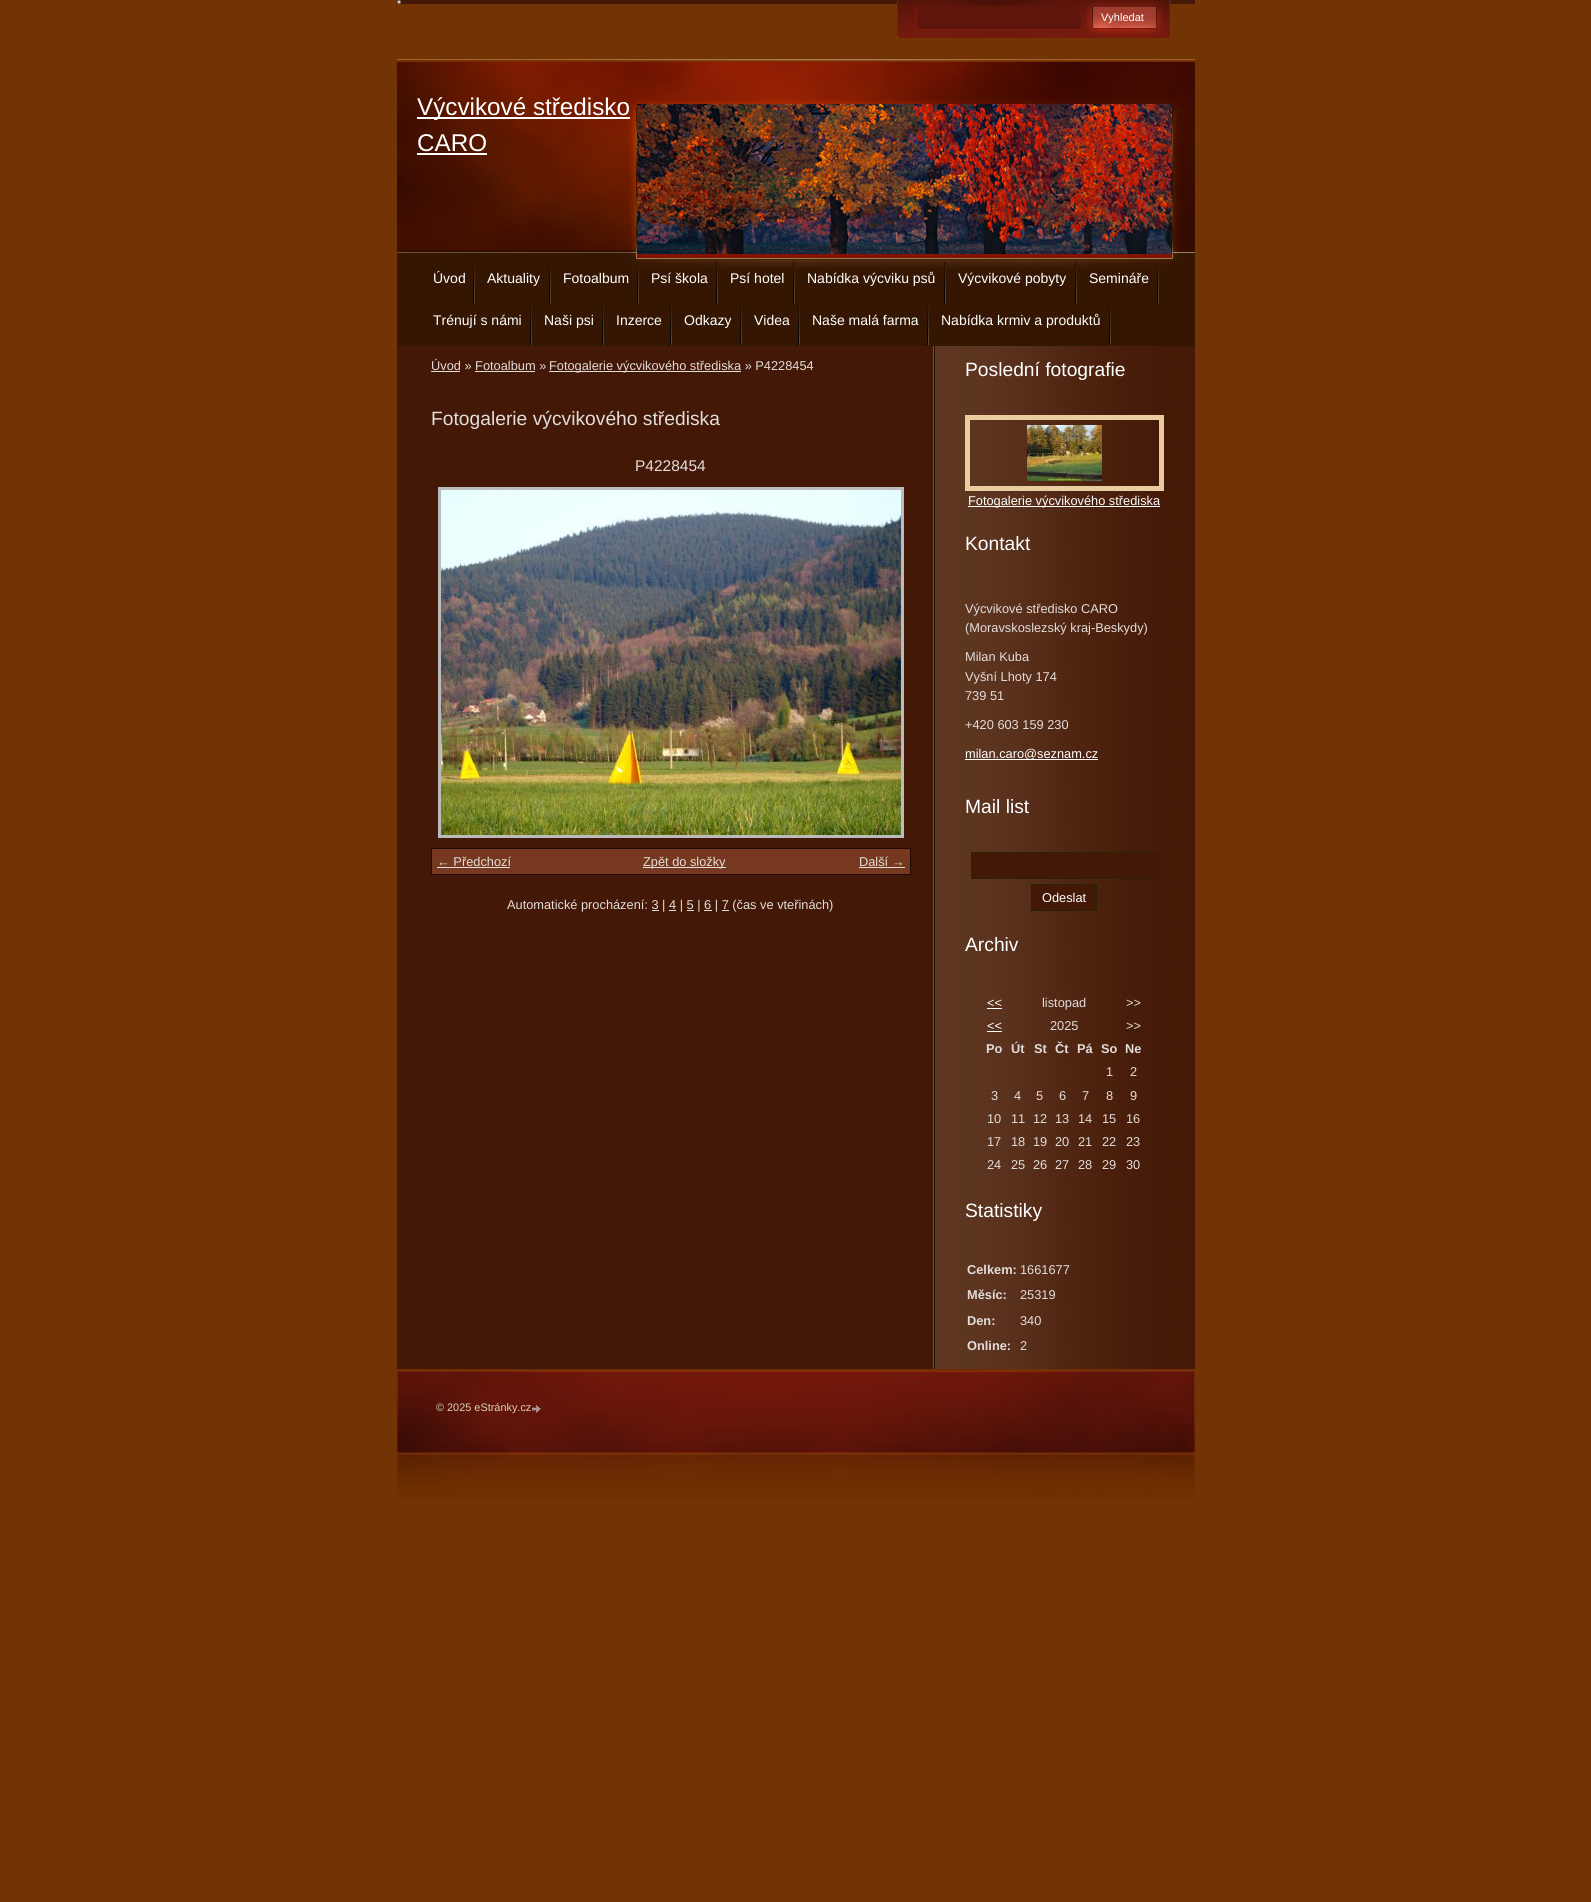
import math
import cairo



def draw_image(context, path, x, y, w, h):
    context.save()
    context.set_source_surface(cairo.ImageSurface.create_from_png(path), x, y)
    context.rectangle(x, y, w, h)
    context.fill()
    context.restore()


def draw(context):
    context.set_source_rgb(114 / 255, 51 / 255, 5 / 255)
    context.paint()
    draw_image(context, "images/1.png", 397, 0, 798, 1369)
    context.set_source_rgb(239 / 255, 239 / 255, 239 / 255)
    context.arc(399, 2, 1.5, 0, 2 * math.pi)
    context.fill_preserve()
    context.set_source_rgb(118 / 255, 118 / 255, 118 / 255)
    context.set_line_width(1)
    context.stroke()
    context.set_source_rgb(114 / 255, 51 / 255, 5 / 255)
    context.rectangle(397, 4, 798, 55)
    context.fill()
    draw_image(context, "images/2.png", 897, 0, 273, 38)
    context.set_source_rgb(95 / 255, 21 / 255, 12 / 255)
    context.rectangle(917, 6, 164, 23)
    context.fill()
    context.rectangle(967.5, 417.5, 194, 71)
    context.set_source_rgb(234 / 255, 204 / 255, 161 / 255)
    context.set_line_width(5)
    context.stroke()
    draw_image(context, "images/3.png", 1027, 425, 75, 56)
    context.set_source_rgb(1, 1, 1)
    context.rectangle(968, 506, 192, 1)
    context.fill()
    context.rectangle(965, 759, 133, 1)
    context.fill()
    context.set_source_rgb(68 / 255, 24 / 255, 6 / 255)
    context.rectangle(972, 853, 184, 25)
    context.fill()
    context.rectangle(971.5, 852.5, 186, 26)
    context.set_source_rgb(37 / 255, 38 / 255, 0)
    context.set_line_width(1)
    context.stroke()
    context.set_source_rgb(68 / 255, 24 / 255, 6 / 255)
    context.rectangle(1031.5, 884.5, 65, 26)
    context.fill_preserve()
    context.set_source_rgb(37 / 255, 38 / 255, 0)
    context.stroke()
    context.set_source_rgb(1, 1, 1)
    context.rectangle(987, 1008, 15, 1)
    context.fill()
    context.rectangle(987, 1031, 15, 1)
    context.fill()
    context.set_source_rgb(52 / 255, 22 / 255, 2 / 255)
    context.rectangle(397, 259, 798, 87)
    context.fill()
    draw_image(context, "images/4.png", 631, 259, 545, 9)
    draw_image(context, "images/5.png", 473, 262, 2, 41)
    draw_image(context, "images/5.png", 549, 262, 2, 41)
    draw_image(context, "images/5.png", 637, 262, 2, 41)
    draw_image(context, "images/5.png", 716, 262, 2, 41)
    draw_image(context, "images/5.png", 793, 262, 2, 41)
    draw_image(context, "images/5.png", 944, 262, 2, 41)
    draw_image(context, "images/5.png", 1075, 262, 2, 41)
    draw_image(context, "images/5.png", 1157, 262, 2, 41)
    draw_image(context, "images/5.png", 530, 304, 2, 41)
    draw_image(context, "images/5.png", 602, 304, 2, 41)
    draw_image(context, "images/5.png", 670, 304, 2, 41)
    draw_image(context, "images/5.png", 740, 304, 2, 41)
    draw_image(context, "images/5.png", 798, 304, 2, 41)
    draw_image(context, "images/5.png", 927, 304, 2, 41)
    draw_image(context, "images/5.png", 1109, 304, 2, 41)
    context.set_source_rgb(227 / 255, 221 / 255, 218 / 255)
    context.rectangle(431, 371, 29, 1)
    context.fill()
    context.rectangle(549, 371, 192, 1)
    context.fill()
    context.rectangle(475, 371, 60, 1)
    context.fill()
    context.rectangle(439.5, 488.5, 463, 348)
    context.set_source_rgb(187 / 255, 187 / 255, 187 / 255)
    context.set_line_width(3)
    context.stroke()
    draw_image(context, "images/6.png", 441, 490, 460, 345)
    context.set_source_rgb(118 / 255, 57 / 255, 32 / 255)
    context.rectangle(431.5, 848.5, 479, 26)
    context.fill_preserve()
    context.set_source_rgb(33 / 255, 11 / 255, 3 / 255)
    context.set_line_width(1)
    context.stroke()
    context.set_source_rgb(227 / 255, 221 / 255, 218 / 255)
    context.rectangle(437, 867, 73, 1)
    context.fill()
    context.rectangle(643, 867, 83, 1)
    context.fill()
    context.rectangle(859, 867, 46, 1)
    context.fill()
    context.rectangle(652, 910, 7, 1)
    context.fill()
    context.rectangle(669, 910, 7, 1)
    context.fill()
    context.rectangle(687, 910, 7, 1)
    context.fill()
    context.rectangle(704, 910, 8, 1)
    context.fill()
    context.rectangle(722, 910, 7, 1)
    context.fill()
    draw_image(context, "images/7.png", 397, 59, 798, 200)
    context.set_source_rgb(1, 1, 1)
    context.rectangle(417, 117, 213, 2)
    context.fill()
    context.rectangle(417, 153, 70, 2)
    context.fill()
    draw_image(context, "images/8.png", 637, 104, 535, 150)
    draw_image(context, "images/9.png", 396, 1369, 800, 130)
    draw_image(context, "images/10.png", 532, 1405, 9, 8)
    context.select_font_face("Liberation Sans")
    context.set_font_size(11)
    context.move_to(1101, 21)
    context.show_text("Vyhledat")
    context.set_font_size(19.25)
    context.move_to(965, 376)
    context.show_text("Poslední fotografie")
    context.set_font_size(12.8)
    context.move_to(968, 505)
    context.show_text("Fotogalerie výcvikového střediska")
    context.set_font_size(19.25)
    context.move_to(965, 550)
    context.show_text("Kontakt")
    context.set_font_size(12.8)
    context.set_source_rgb(227 / 255, 221 / 255, 218 / 255)
    context.move_to(965, 613)
    context.show_text("Výcvikové středisko CARO")
    context.move_to(965, 632)
    context.show_text("(Moravskoslezský kraj-Beskydy)")
    context.move_to(965, 661)
    context.show_text("Milan Kuba")
    context.move_to(965, 681)
    context.show_text("Vyšní Lhoty 174")
    context.move_to(965, 700)
    context.show_text("739 51")
    context.move_to(965, 729)
    context.show_text("+420 603 159 230")
    context.set_source_rgb(1, 1, 1)
    context.move_to(965, 758)
    context.show_text("milan.caro@seznam.cz")
    context.set_font_size(19.25)
    context.move_to(965, 813)
    context.show_text("Mail list")
    context.set_font_size(12.8)
    context.move_to(1042, 902)
    context.show_text("Odeslat")
    context.set_font_size(19.25)
    context.move_to(965, 951)
    context.show_text("Archiv")
    context.set_font_size(12.8)
    context.move_to(987, 1007)
    context.show_text("<<")
    context.set_source_rgb(227 / 255, 221 / 255, 218 / 255)
    context.move_to(1042, 1007)
    context.show_text("listopad")
    context.move_to(1126, 1007)
    context.show_text(">>")
    context.set_source_rgb(1, 1, 1)
    context.move_to(987, 1030)
    context.show_text("<<")
    context.set_source_rgb(227 / 255, 221 / 255, 218 / 255)
    context.move_to(1050, 1030)
    context.show_text("2025")
    context.move_to(1126, 1030)
    context.show_text(">>")
    context.select_font_face("Liberation Sans", cairo.FontSlant.NORMAL, cairo.FontWeight.BOLD)
    context.move_to(986, 1053)
    context.show_text("Po")
    context.move_to(1011, 1053)
    context.show_text("Út")
    context.move_to(1034, 1053)
    context.show_text("St")
    context.move_to(1055, 1053)
    context.show_text("Čt")
    context.move_to(1077, 1053)
    context.show_text("Pá")
    context.move_to(1101, 1053)
    context.show_text("So")
    context.move_to(1125, 1053)
    context.show_text("Ne")
    context.select_font_face("Liberation Sans")
    context.move_to(1106, 1076)
    context.show_text("1")
    context.move_to(1130, 1076)
    context.show_text("2")
    context.move_to(991, 1100)
    context.show_text("3")
    context.move_to(1014, 1100)
    context.show_text("4")
    context.move_to(1036, 1100)
    context.show_text("5")
    context.move_to(1059, 1100)
    context.show_text("6")
    context.move_to(1082, 1100)
    context.show_text("7")
    context.move_to(1106, 1100)
    context.show_text("8")
    context.move_to(1130, 1100)
    context.show_text("9")
    context.move_to(987, 1123)
    context.show_text("10")
    context.move_to(1011, 1123)
    context.show_text("11")
    context.move_to(1033, 1123)
    context.show_text("12")
    context.move_to(1055, 1123)
    context.show_text("13")
    context.move_to(1078, 1123)
    context.show_text("14")
    context.move_to(1102, 1123)
    context.show_text("15")
    context.move_to(1126, 1123)
    context.show_text("16")
    context.move_to(987, 1146)
    context.show_text("17")
    context.move_to(1011, 1146)
    context.show_text("18")
    context.move_to(1033, 1146)
    context.show_text("19")
    context.move_to(1055, 1146)
    context.show_text("20")
    context.move_to(1078, 1146)
    context.show_text("21")
    context.move_to(1102, 1146)
    context.show_text("22")
    context.move_to(1126, 1146)
    context.show_text("23")
    context.move_to(987, 1169)
    context.show_text("24")
    context.move_to(1011, 1169)
    context.show_text("25")
    context.move_to(1033, 1169)
    context.show_text("26")
    context.move_to(1055, 1169)
    context.show_text("27")
    context.move_to(1078, 1169)
    context.show_text("28")
    context.move_to(1102, 1169)
    context.show_text("29")
    context.move_to(1126, 1169)
    context.show_text("30")
    context.set_font_size(19.25)
    context.set_source_rgb(1, 1, 1)
    context.move_to(965, 1217)
    context.show_text("Statistiky")
    context.select_font_face("Liberation Sans", cairo.FontSlant.NORMAL, cairo.FontWeight.BOLD)
    context.set_font_size(12.8)
    context.set_source_rgb(227 / 255, 221 / 255, 218 / 255)
    context.move_to(967, 1274)
    context.show_text("Celkem:")
    context.select_font_face("Liberation Sans")
    context.move_to(1020, 1274)
    context.show_text("1661677")
    context.select_font_face("Liberation Sans", cairo.FontSlant.NORMAL, cairo.FontWeight.BOLD)
    context.move_to(967, 1299)
    context.show_text("Měsíc:")
    context.select_font_face("Liberation Sans")
    context.move_to(1020, 1299)
    context.show_text("25319")
    context.select_font_face("Liberation Sans", cairo.FontSlant.NORMAL, cairo.FontWeight.BOLD)
    context.move_to(967, 1325)
    context.show_text("Den:")
    context.select_font_face("Liberation Sans")
    context.move_to(1020, 1325)
    context.show_text("340")
    context.select_font_face("Liberation Sans", cairo.FontSlant.NORMAL, cairo.FontWeight.BOLD)
    context.move_to(967, 1350)
    context.show_text("Online:")
    context.select_font_face("Liberation Sans")
    context.move_to(1020, 1350)
    context.show_text("2")
    context.set_font_size(14)
    context.set_source_rgb(1, 1, 1)
    context.move_to(433, 283)
    context.show_text("Úvod")
    context.move_to(487, 283)
    context.show_text("Aktuality")
    context.move_to(563, 283)
    context.show_text("Fotoalbum")
    context.move_to(651, 283)
    context.show_text("Psí škola")
    context.move_to(730, 283)
    context.show_text("Psí hotel")
    context.move_to(807, 283)
    context.show_text("Nabídka výcviku psů")
    context.move_to(958, 283)
    context.show_text("Výcvikové pobyty")
    context.move_to(1089, 283)
    context.show_text("Semináře")
    context.move_to(433, 325)
    context.show_text("Trénují s námi")
    context.move_to(544, 325)
    context.show_text("Naši psi")
    context.move_to(616, 325)
    context.show_text("Inzerce")
    context.move_to(684, 325)
    context.show_text("Odkazy")
    context.move_to(754, 325)
    context.show_text("Videa")
    context.move_to(812, 325)
    context.show_text("Naše malá farma")
    context.move_to(941, 325)
    context.show_text("Nabídka krmiv a produktů")
    context.set_font_size(12.8)
    context.set_source_rgb(227 / 255, 221 / 255, 218 / 255)
    context.move_to(431, 370)
    context.show_text("Úvod » Fotoalbum »")
    context.move_to(549, 370)
    context.show_text("Fotogalerie výcvikového střediska » P4228454")
    context.set_font_size(19.25)
    context.move_to(431, 425)
    context.show_text("Fotogalerie výcvikového střediska")
    context.set_font_size(15.5)
    context.move_to(635, 471)
    context.show_text("P4228454")
    context.set_font_size(12.8)
    context.move_to(437, 866)
    context.show_text("← Předchozí")
    context.move_to(643, 866)
    context.show_text("Zpět do složky")
    context.move_to(859, 866)
    context.show_text("Další →")
    context.move_to(507, 909)
    context.show_text("Automatické procházení: 3 | 4 | 5 | 6 | 7 (čas ve vteřinách)")
    context.set_font_size(24.25)
    context.set_source_rgb(1, 1, 1)
    context.move_to(417, 115)
    context.show_text("Výcvikové středisko")
    context.move_to(417, 151)
    context.show_text("CARO")
    context.set_font_size(10.9)
    context.set_source_rgb(218 / 255, 210 / 255, 189 / 255)
    context.move_to(436, 1411)
    context.show_text("© 2025 eStránky.cz")


surface = cairo.ImageSurface(cairo.Format.RGB24, 1591, 1902)
context = cairo.Context(surface)
options = cairo.FontOptions()
options.set_hint_metrics(cairo.HintMetrics.OFF)
options.set_hint_style(cairo.HintStyle.NONE)
context.set_font_options(options)
context.set_miter_limit(4)
draw(context)
surface.write_to_png("out.png")
